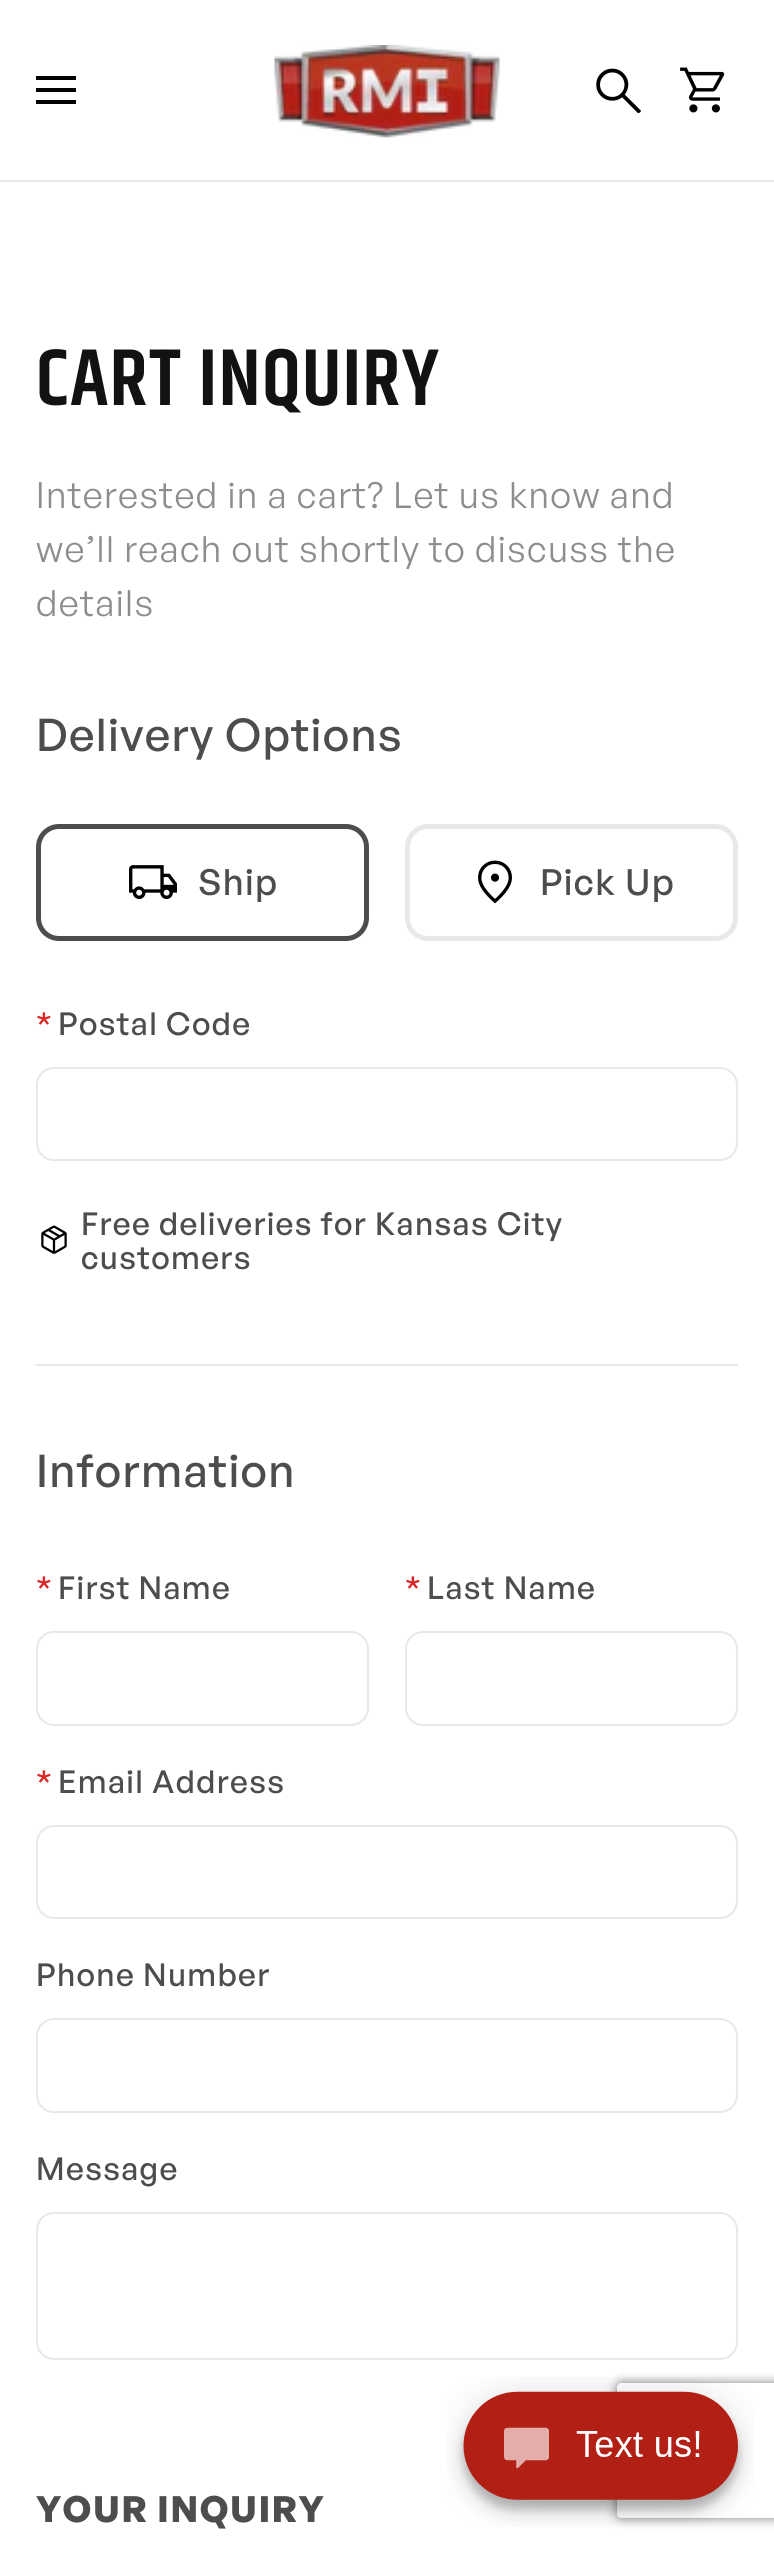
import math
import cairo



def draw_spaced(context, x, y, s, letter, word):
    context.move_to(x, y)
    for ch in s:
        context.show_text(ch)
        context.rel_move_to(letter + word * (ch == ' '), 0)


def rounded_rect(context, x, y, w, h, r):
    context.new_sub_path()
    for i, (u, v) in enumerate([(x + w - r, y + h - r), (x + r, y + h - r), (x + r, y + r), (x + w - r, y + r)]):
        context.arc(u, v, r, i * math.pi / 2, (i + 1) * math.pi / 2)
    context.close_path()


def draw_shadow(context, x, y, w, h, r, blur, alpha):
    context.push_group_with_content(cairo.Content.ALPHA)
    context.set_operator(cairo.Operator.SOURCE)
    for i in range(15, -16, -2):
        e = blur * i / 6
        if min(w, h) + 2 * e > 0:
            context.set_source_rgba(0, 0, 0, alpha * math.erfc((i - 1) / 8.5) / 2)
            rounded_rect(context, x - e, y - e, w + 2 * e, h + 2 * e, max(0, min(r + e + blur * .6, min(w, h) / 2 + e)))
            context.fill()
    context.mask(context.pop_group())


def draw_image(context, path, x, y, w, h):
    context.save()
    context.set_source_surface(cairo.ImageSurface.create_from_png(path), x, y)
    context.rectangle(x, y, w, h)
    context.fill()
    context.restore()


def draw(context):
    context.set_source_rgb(1, 1, 1)
    context.paint()
    context.set_source_rgb(0, 0, 0)
    context.new_path()
    context.move_to(36, 104)
    context.line_to(36, 100)
    context.line_to(76, 100)
    context.line_to(76, 104)
    context.close_path()
    context.move_to(36, 92)
    context.line_to(36, 88)
    context.line_to(76, 88)
    context.line_to(76, 92)
    context.close_path()
    context.move_to(36, 80)
    context.line_to(36, 76)
    context.line_to(76, 76)
    context.line_to(76, 80)
    context.close_path()
    context.fill()
    draw_image(context, "images/1.png", 274, 45, 226, 93)
    draw_image(context, "images/2.png", 596, 68, 45, 45)
    draw_image(context, "images/3.png", 680, 67, 45, 46)
    context.set_source_rgb(232 / 255, 232 / 255, 232 / 255)
    context.rectangle(0, 180, 774, 2)
    context.fill()
    context.rectangle(36, 1364, 702, 2)
    context.fill()
    rounded_rect(context, 38.5, 826.5, 328, 112, 20.5)
    context.set_source_rgb(77 / 255, 77 / 255, 77 / 255)
    context.set_line_width(5)
    context.stroke()
    draw_image(context, "images/4.png", 129, 865, 48, 34)
    rounded_rect(context, 407.5, 826.5, 328, 112, 20.5)
    context.set_source_rgb(232 / 255, 232 / 255, 232 / 255)
    context.stroke()
    draw_image(context, "images/5.png", 478, 860, 34, 44)
    rounded_rect(context, 37, 1068, 700, 92, 17)
    context.set_line_width(2)
    context.stroke()
    draw_image(context, "images/6.png", 41, 1225, 26, 29)
    rounded_rect(context, 37, 1632, 331, 93, 17)
    context.stroke()
    rounded_rect(context, 406, 1632, 331, 93, 17)
    context.stroke()
    rounded_rect(context, 37, 1826, 700, 92, 17)
    context.stroke()
    rounded_rect(context, 37, 2019, 700, 93, 17)
    context.stroke()
    rounded_rect(context, 37, 2213, 700, 146, 17)
    context.stroke()
    context.save()
    context.set_fill_rule(cairo.FillRule.EVEN_ODD)
    context.new_path()
    context.move_to(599, 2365)
    context.line_to(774, 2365)
    context.line_to(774, 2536)
    context.line_to(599, 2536)
    context.close_path()
    context.move_to(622, 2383)
    context.line_to(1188, 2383)
    context.curve_to(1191, 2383, 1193, 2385, 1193, 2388)
    context.line_to(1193, 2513)
    context.curve_to(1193, 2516, 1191, 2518, 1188, 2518)
    context.line_to(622, 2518)
    context.curve_to(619, 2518, 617, 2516, 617, 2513)
    context.line_to(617, 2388)
    context.curve_to(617, 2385, 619, 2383, 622, 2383)
    context.close_path()
    context.clip()
    context.set_source_rgb(128 / 255, 128 / 255, 128 / 255)
    draw_shadow(context, 617, 2383, 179, 135, 5, 5.5, 1)
    context.restore()
    draw_image(context, "images/7.png", 447, 2377, 307, 150)
    context.select_font_face("Khand SemiBold")
    context.set_font_size(81)
    context.set_source_rgb(18 / 255, 18 / 255, 18 / 255)
    draw_spaced(context, 36, 405, "CART INQUIRY", 1.35, 0)
    context.select_font_face("General Sans")
    context.set_font_size(36)
    context.set_source_rgb(141 / 255, 141 / 255, 141 / 255)
    draw_spaced(context, 36, 508, "Interested in a cart? Let us know and", 1.35, 0)
    draw_spaced(context, 36, 562, "we’ll reach out shortly to discuss the", 1.35, 0)
    draw_spaced(context, 36, 616, "details", 1.35, 0)
    context.select_font_face("General Sans Medium")
    context.set_font_size(45)
    context.set_source_rgb(77 / 255, 77 / 255, 77 / 255)
    draw_spaced(context, 36, 751, "Delivery Options", 1.35, 0)
    context.set_font_size(36)
    draw_spaced(context, 198, 895, "Ship", 1.35, 0)
    draw_spaced(context, 540, 895, "Pick Up", 1.35, 0)
    context.set_font_size(31.5)
    context.set_source_rgb(220 / 255, 38 / 255, 38 / 255)
    draw_spaced(context, 36, 1035, "*", 1.35, 0)
    context.set_source_rgb(77 / 255, 77 / 255, 77 / 255)
    draw_spaced(context, 58, 1035, "Postal Code", 1.35, 0)
    draw_spaced(context, 81, 1235, "Free deliveries for Kansas City", 1.35, 0)
    draw_spaced(context, 81, 1269, "customers", 1.35, 0)
    context.set_font_size(45)
    draw_spaced(context, 36, 1487, "Information", 1.35, 0)
    context.set_font_size(31.5)
    context.set_source_rgb(220 / 255, 38 / 255, 38 / 255)
    draw_spaced(context, 36, 1599, "*", 1.35, 0)
    context.set_source_rgb(77 / 255, 77 / 255, 77 / 255)
    draw_spaced(context, 58, 1599, "First Name", 1.35, 0)
    context.set_source_rgb(220 / 255, 38 / 255, 38 / 255)
    draw_spaced(context, 405, 1599, "*", 1.35, 0)
    context.set_source_rgb(77 / 255, 77 / 255, 77 / 255)
    draw_spaced(context, 427, 1599, "Last Name", 1.35, 0)
    context.set_source_rgb(220 / 255, 38 / 255, 38 / 255)
    draw_spaced(context, 36, 1793, "*", 1.35, 0)
    context.set_source_rgb(77 / 255, 77 / 255, 77 / 255)
    draw_spaced(context, 58, 1793, "Email Address", 1.35, 0)
    draw_spaced(context, 36, 1986, "Phone Number", 1.35, 0)
    draw_spaced(context, 36, 2180, "Message", 1.35, 0)
    context.select_font_face("General Sans", cairo.FontSlant.NORMAL, cairo.FontWeight.BOLD)
    context.set_font_size(36)
    draw_spaced(context, 36, 2522, "YOUR INQUIRY", 1.35, 0)


surface = cairo.ImageSurface(cairo.Format.RGB24, 774, 2549)
context = cairo.Context(surface)
options = cairo.FontOptions()
options.set_hint_metrics(cairo.HintMetrics.OFF)
options.set_hint_style(cairo.HintStyle.NONE)
context.set_font_options(options)
context.set_miter_limit(4)
draw(context)
surface.write_to_png("out.png")
